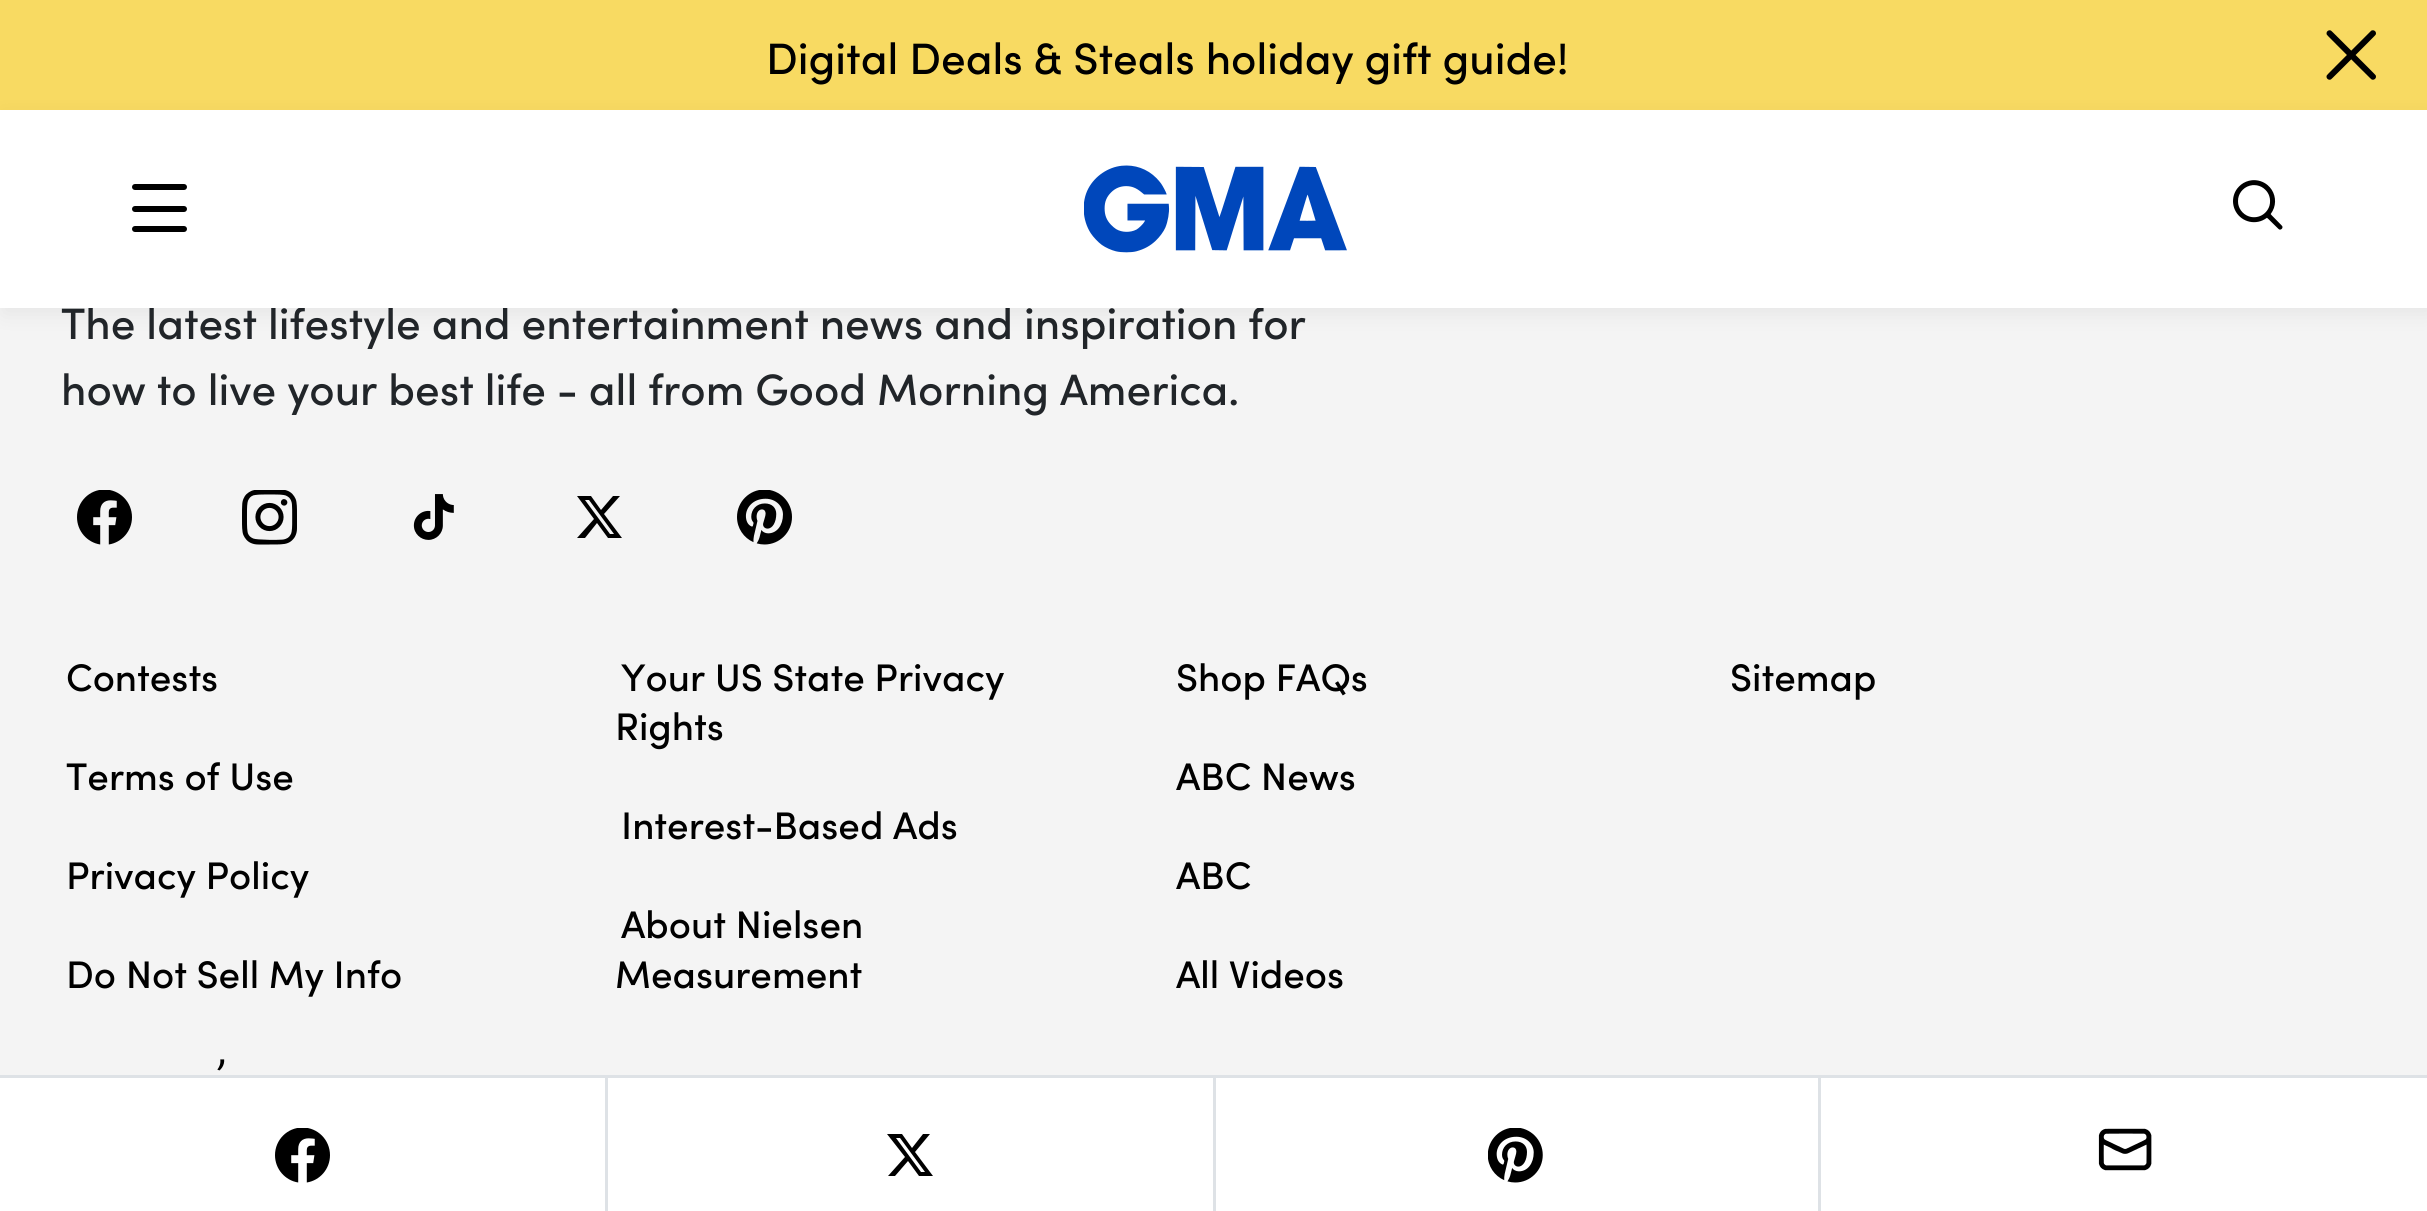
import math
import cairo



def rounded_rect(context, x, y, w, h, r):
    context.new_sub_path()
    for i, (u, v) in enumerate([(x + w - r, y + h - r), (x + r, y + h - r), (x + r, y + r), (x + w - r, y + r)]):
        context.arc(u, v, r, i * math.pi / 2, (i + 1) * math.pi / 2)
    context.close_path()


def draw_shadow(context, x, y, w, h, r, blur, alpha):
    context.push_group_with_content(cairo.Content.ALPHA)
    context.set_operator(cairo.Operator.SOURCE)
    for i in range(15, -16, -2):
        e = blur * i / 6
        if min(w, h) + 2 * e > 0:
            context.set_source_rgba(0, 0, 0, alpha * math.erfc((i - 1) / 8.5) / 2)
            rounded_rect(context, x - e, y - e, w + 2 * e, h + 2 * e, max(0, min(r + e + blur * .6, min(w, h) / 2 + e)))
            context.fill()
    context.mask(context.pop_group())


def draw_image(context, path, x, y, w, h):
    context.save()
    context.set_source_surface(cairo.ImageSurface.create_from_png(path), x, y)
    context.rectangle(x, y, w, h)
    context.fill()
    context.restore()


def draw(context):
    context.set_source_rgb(244 / 255, 244 / 255, 244 / 255)
    context.paint()
    context.set_source_rgb(248 / 255, 218 / 255, 98 / 255)
    context.rectangle(0, 0, 2427, 110)
    context.fill()
    draw_image(context, "images/1.png", 2326, 30, 50, 50)
    context.set_source_rgb(0, 0, 0)
    draw_shadow(context, 3, 116, 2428, 198, 0, 11, 0.06)
    draw_image(context, "images/4.png", 77, 490, 55, 55)
    draw_image(context, "images/5.png", 242, 490, 55, 55)
    draw_image(context, "images/6.png", 413, 494, 41, 46)
    context.set_source_rgb(0, 0, 0)
    context.new_path()
    context.move_to(613, 496)
    context.line_to(620, 496)
    context.line_to(604, 514)
    context.line_to(622, 538)
    context.line_to(608, 538)
    context.line_to(597, 523)
    context.line_to(585, 538)
    context.line_to(577, 538)
    context.line_to(594, 519)
    context.line_to(577, 496)
    context.line_to(591, 496)
    context.line_to(601, 510)
    context.close_path()
    context.move_to(610, 534)
    context.line_to(614, 534)
    context.line_to(589, 500)
    context.line_to(585, 500)
    context.close_path()
    context.fill()
    draw_image(context, "images/7.png", 737, 490, 55, 55)
    context.set_source_rgb(1, 1, 1)
    context.rectangle(0, 1078, 2427, 133)
    context.fill()
    context.set_source_rgb(222 / 255, 226 / 255, 230 / 255)
    context.rectangle(0, 1075, 2427, 3)
    context.fill()
    context.rectangle(605, 1078, 3, 133)
    context.fill()
    draw_image(context, "images/8.png", 275, 1128, 55, 55)
    context.rectangle(1213, 1078, 3, 133)
    context.fill()
    context.set_source_rgb(0, 0, 0)
    context.new_path()
    context.move_to(923, 1134)
    context.line_to(930, 1134)
    context.line_to(915, 1152)
    context.line_to(933, 1176)
    context.line_to(919, 1176)
    context.line_to(908, 1161)
    context.line_to(895, 1176)
    context.line_to(888, 1176)
    context.line_to(905, 1157)
    context.line_to(887, 1134)
    context.line_to(902, 1134)
    context.line_to(912, 1148)
    context.close_path()
    context.move_to(921, 1172)
    context.line_to(925, 1172)
    context.line_to(900, 1138)
    context.line_to(896, 1138)
    context.close_path()
    context.fill()
    context.set_source_rgb(222 / 255, 226 / 255, 230 / 255)
    context.rectangle(1818, 1078, 3, 133)
    context.fill()
    draw_image(context, "images/9.png", 1488, 1128, 55, 55)
    draw_image(context, "images/10.png", 2098, 1128, 54, 43)
    context.select_font_face("Sofia Medium")
    context.set_font_size(44)
    context.set_source_rgb(0, 0, 0)
    context.move_to(766, 74)
    context.show_text("Digital Deals & Steals holiday gift guide!")
    context.set_source_rgb(33 / 255, 37 / 255, 41 / 255)
    context.move_to(61, 339)
    context.show_text("The latest lifestyle and entertainment news and inspiration for")
    context.set_source_rgb(1, 1, 1)
    context.rectangle(0, 110, 2427, 198)
    context.fill()
    draw_image(context, "images/3.png", 2233, 180, 50, 50)
    context.set_source_rgb(0, 0, 0)
    rounded_rect(context, 132, 226, 55, 6, 3)
    context.fill()
    rounded_rect(context, 132, 184, 55, 6, 3)
    context.fill()
    rounded_rect(context, 132, 206, 55, 6, 3)
    context.fill()
    draw_image(context, "images/2.png", 1084, 165, 263, 88)
    context.set_source_rgb(33 / 255, 37 / 255, 41 / 255)
    context.move_to(61, 405)
    context.show_text("how to live your best life - all from Good Morning America.")
    context.set_font_size(38.5)
    context.set_source_rgb(0, 0, 0)
    context.move_to(66, 691)
    context.show_text("Contests")
    context.move_to(66, 790)
    context.show_text("Terms of Use")
    context.move_to(66, 889)
    context.show_text("Privacy Policy")
    context.move_to(66, 988)
    context.show_text("Do Not Sell My Info")
    context.move_to(216, 1087)
    context.show_text("’")
    context.move_to(621, 691)
    context.show_text("Your US State Privacy")
    context.move_to(615, 740)
    context.show_text("Rights")
    context.move_to(621, 839)
    context.show_text("Interest-Based Ads")
    context.move_to(621, 938)
    context.show_text("About Nielsen")
    context.move_to(615, 988)
    context.show_text("Measurement")
    context.move_to(1176, 691)
    context.show_text("Shop FAQs")
    context.move_to(1176, 790)
    context.show_text("ABC News")
    context.move_to(1176, 889)
    context.show_text("ABC")
    context.move_to(1176, 988)
    context.show_text("All Videos")
    context.move_to(1730, 691)
    context.show_text("Sitemap")


surface = cairo.ImageSurface(cairo.Format.RGB24, 2427, 1211)
context = cairo.Context(surface)
options = cairo.FontOptions()
options.set_hint_metrics(cairo.HintMetrics.OFF)
options.set_hint_style(cairo.HintStyle.NONE)
context.set_font_options(options)
context.set_miter_limit(4)
draw(context)
surface.write_to_png("out.png")
